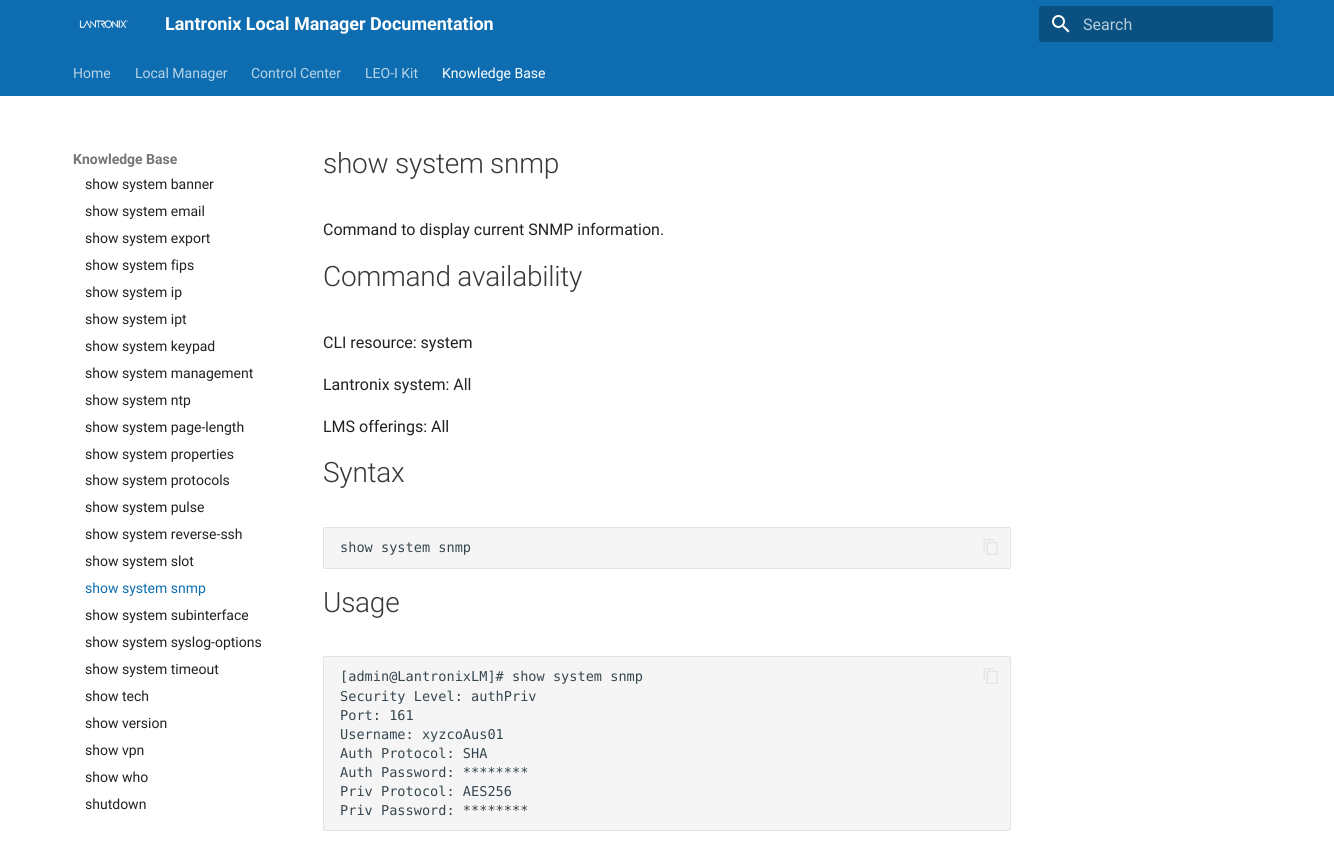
import math
import cairo



def draw_spaced(context, x, y, s, letter, word):
    context.move_to(x, y)
    for ch in s:
        context.show_text(ch)
        context.rel_move_to(letter + word * (ch == ' '), 0)


def rounded_rect(context, x, y, w, h, r):
    context.new_sub_path()
    for i, (u, v) in enumerate([(x + w - r, y + h - r), (x + r, y + h - r), (x + r, y + r), (x + w - r, y + r)]):
        context.arc(u, v, r, i * math.pi / 2, (i + 1) * math.pi / 2)
    context.close_path()


def draw_shadow(context, x, y, w, h, r, blur, alpha):
    context.push_group_with_content(cairo.Content.ALPHA)
    context.set_operator(cairo.Operator.SOURCE)
    for i in range(15, -16, -2):
        e = blur * i / 6
        if min(w, h) + 2 * e > 0:
            context.set_source_rgba(0, 0, 0, alpha * math.erfc((i - 1) / 8.5) / 2)
            rounded_rect(context, x - e, y - e, w + 2 * e, h + 2 * e, max(0, min(r + e + blur * .6, min(w, h) / 2 + e)))
            context.fill()
    context.mask(context.pop_group())


def draw_image(context, path, x, y, w, h):
    context.save()
    context.set_source_surface(cairo.ImageSurface.create_from_png(path), x, y)
    context.rectangle(x, y, w, h)
    context.fill()
    context.restore()


def draw(context):
    context.set_source_rgb(1, 1, 1)
    context.paint()
    context.set_source_rgb(14 / 255, 109 / 255, 176 / 255)
    context.rectangle(0, 0, 1334, 96)
    context.fill()
    draw_image(context, "images/1.png", 79, 20, 50, 9)
    context.set_source_rgb(10 / 255, 81 / 255, 130 / 255)
    rounded_rect(context, 1039, 6, 234, 36, 2)
    context.fill()
    draw_image(context, "images/2.png", 1052, 15, 18, 18)
    context.save()
    context.rectangle(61, 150, 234, 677)
    context.clip()
    context.set_source_rgb(1, 1, 1)
    draw_shadow(context, 65, 142, 226, 34, 0, 4, 1)
    context.restore()
    context.set_source_rgb(245 / 255, 245 / 255, 245 / 255)
    rounded_rect(context, 323.5, 527.5, 687, 41, 1.5)
    context.fill_preserve()
    context.set_source_rgb(225 / 255, 228 / 255, 229 / 255)
    context.set_line_width(1)
    context.stroke()
    draw_image(context, "images/3.png", 983, 539, 15, 16)
    context.set_source_rgb(245 / 255, 245 / 255, 245 / 255)
    rounded_rect(context, 323.5, 656.5, 687, 174, 1.5)
    context.fill_preserve()
    context.set_source_rgb(225 / 255, 228 / 255, 229 / 255)
    context.stroke()
    draw_image(context, "images/3.png", 983, 668, 15, 16)
    context.select_font_face("Roboto", cairo.FontSlant.NORMAL, cairo.FontWeight.BOLD)
    context.set_font_size(18)
    context.set_source_rgb(1, 1, 1)
    context.move_to(165, 30)
    context.show_text("Lantronix Local Manager Documentation")
    context.select_font_face("Roboto")
    context.set_font_size(16)
    context.set_source_rgb(182 / 255, 203 / 255, 218 / 255)
    context.move_to(1083, 30)
    context.show_text("Search")
    context.set_font_size(14)
    context.set_source_rgb(183 / 255, 211 / 255, 231 / 255)
    context.move_to(73, 78)
    context.show_text("Home")
    context.move_to(135, 78)
    context.show_text("Local Manager")
    context.move_to(251, 78)
    context.show_text("Control Center")
    context.move_to(365, 78)
    context.show_text("LEO-I Kit")
    context.set_source_rgb(1, 1, 1)
    context.move_to(442, 78)
    context.show_text("Knowledge Base")
    context.select_font_face("Roboto", cairo.FontSlant.NORMAL, cairo.FontWeight.BOLD)
    context.set_source_rgb(117 / 255, 117 / 255, 117 / 255)
    context.move_to(73, 164)
    context.show_text("Knowledge Base")
    context.select_font_face("Roboto")
    context.set_source_rgb(33 / 255, 33 / 255, 33 / 255)
    context.move_to(85, 189)
    context.show_text("show system banner")
    context.move_to(85, 216)
    context.show_text("show system email")
    context.move_to(85, 243)
    context.show_text("show system export")
    context.move_to(85, 270)
    context.show_text("show system fips")
    context.move_to(85, 297)
    context.show_text("show system ip")
    context.move_to(85, 324)
    context.show_text("show system ipt")
    context.move_to(85, 351)
    context.show_text("show system keypad")
    context.move_to(85, 378)
    context.show_text("show system management")
    context.move_to(85, 405)
    context.show_text("show system ntp")
    context.move_to(85, 432)
    context.show_text("show system page-length")
    context.move_to(85, 459)
    context.show_text("show system properties")
    context.move_to(85, 485)
    context.show_text("show system protocols")
    context.move_to(85, 512)
    context.show_text("show system pulse")
    context.move_to(85, 539)
    context.show_text("show system reverse-ssh")
    context.move_to(85, 566)
    context.show_text("show system slot")
    context.set_source_rgb(14 / 255, 109 / 255, 176 / 255)
    context.move_to(85, 593)
    context.show_text("show system snmp")
    context.set_source_rgb(33 / 255, 33 / 255, 33 / 255)
    context.move_to(85, 620)
    context.show_text("show system subinterface")
    context.move_to(85, 647)
    context.show_text("show system syslog-options")
    context.move_to(85, 674)
    context.show_text("show system timeout")
    context.move_to(85, 701)
    context.show_text("show tech")
    context.move_to(85, 728)
    context.show_text("show version")
    context.move_to(85, 755)
    context.show_text("show vpn")
    context.move_to(85, 782)
    context.show_text("show who")
    context.move_to(85, 809)
    context.show_text("shutdown")
    context.select_font_face("Roboto Light")
    context.set_font_size(28)
    context.set_source_rgb(54 / 255, 56 / 255, 59 / 255)
    draw_spaced(context, 323, 173, "show system snmp", -0.25, 0)
    context.select_font_face("Roboto")
    context.set_font_size(16)
    context.set_source_rgb(33 / 255, 33 / 255, 33 / 255)
    context.move_to(323, 235)
    context.show_text("Command to display current SNMP information.")
    context.select_font_face("Roboto Light")
    context.set_font_size(28)
    context.set_source_rgb(54 / 255, 56 / 255, 59 / 255)
    draw_spaced(context, 323, 286, "Command availability", -0.25, 0)
    context.select_font_face("Roboto")
    context.set_font_size(16)
    context.set_source_rgb(33 / 255, 33 / 255, 33 / 255)
    context.move_to(323, 348)
    context.show_text("CLI resource: system")
    context.move_to(323, 390)
    context.show_text("Lantronix system: All")
    context.move_to(323, 432)
    context.show_text("LMS offerings: All")
    context.select_font_face("Roboto Light")
    context.set_font_size(28)
    context.set_source_rgb(54 / 255, 56 / 255, 59 / 255)
    draw_spaced(context, 323, 482, "Syntax", -0.25, 0)
    context.select_font_face("DejaVu Sans Mono")
    context.set_font_size(13.6)
    context.set_source_rgb(54 / 255, 70 / 255, 78 / 255)
    context.move_to(340, 552)
    context.show_text("show system snmp")
    context.select_font_face("Roboto Light")
    context.set_font_size(28)
    context.set_source_rgb(54 / 255, 56 / 255, 59 / 255)
    draw_spaced(context, 323, 612, "Usage", -0.25, 0)
    context.select_font_face("DejaVu Sans Mono")
    context.set_font_size(13.6)
    context.set_source_rgb(54 / 255, 70 / 255, 78 / 255)
    context.move_to(340, 681)
    context.show_text("[admin@LantronixLM]# show system snmp")
    context.move_to(340, 701)
    context.show_text("Security Level: authPriv")
    context.move_to(340, 720)
    context.show_text("Port: 161")
    context.move_to(340, 739)
    context.show_text("Username: xyzcoAus01")
    context.move_to(340, 758)
    context.show_text("Auth Protocol: SHA")
    context.move_to(340, 777)
    context.show_text("Auth Password: ********")
    context.move_to(340, 796)
    context.show_text("Priv Protocol: AES256")
    context.move_to(340, 815)
    context.show_text("Priv Password: ********")


surface = cairo.ImageSurface(cairo.Format.RGB24, 1334, 851)
context = cairo.Context(surface)
options = cairo.FontOptions()
options.set_hint_metrics(cairo.HintMetrics.OFF)
options.set_hint_style(cairo.HintStyle.NONE)
context.set_font_options(options)
context.set_miter_limit(4)
draw(context)
surface.write_to_png("out.png")
